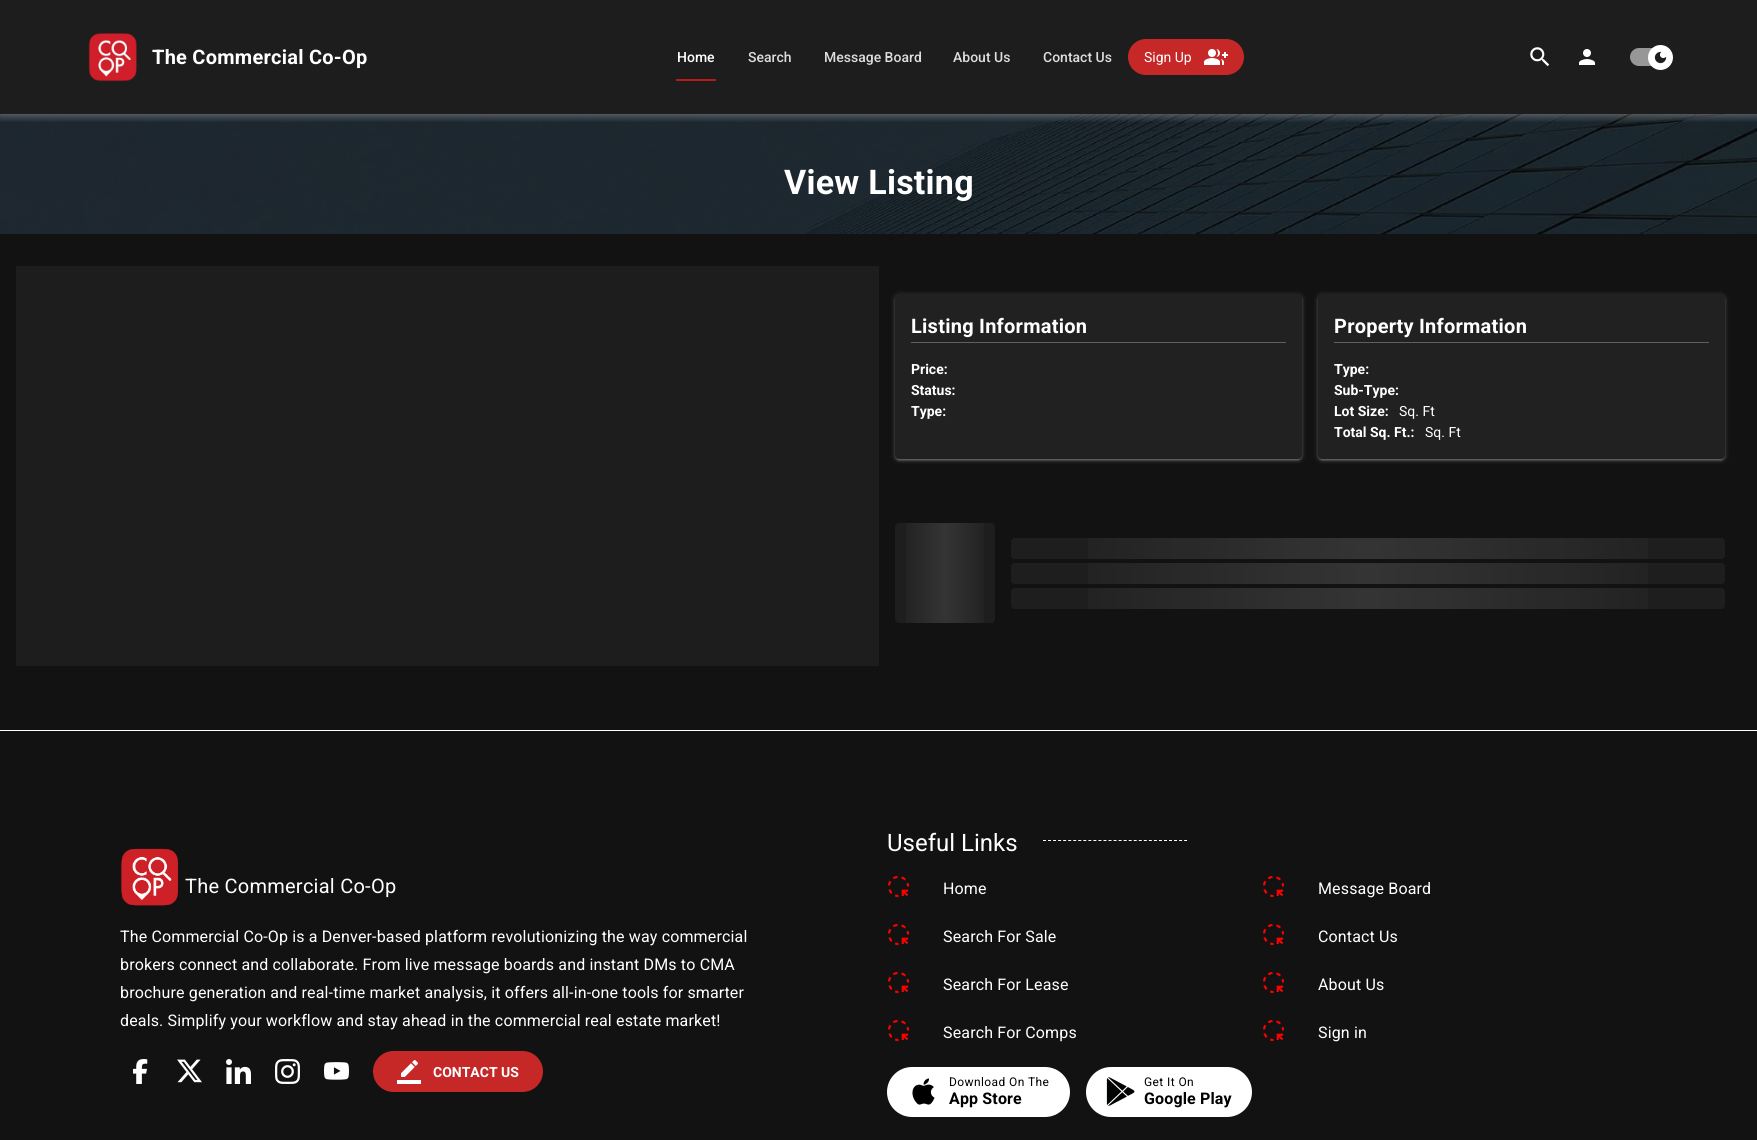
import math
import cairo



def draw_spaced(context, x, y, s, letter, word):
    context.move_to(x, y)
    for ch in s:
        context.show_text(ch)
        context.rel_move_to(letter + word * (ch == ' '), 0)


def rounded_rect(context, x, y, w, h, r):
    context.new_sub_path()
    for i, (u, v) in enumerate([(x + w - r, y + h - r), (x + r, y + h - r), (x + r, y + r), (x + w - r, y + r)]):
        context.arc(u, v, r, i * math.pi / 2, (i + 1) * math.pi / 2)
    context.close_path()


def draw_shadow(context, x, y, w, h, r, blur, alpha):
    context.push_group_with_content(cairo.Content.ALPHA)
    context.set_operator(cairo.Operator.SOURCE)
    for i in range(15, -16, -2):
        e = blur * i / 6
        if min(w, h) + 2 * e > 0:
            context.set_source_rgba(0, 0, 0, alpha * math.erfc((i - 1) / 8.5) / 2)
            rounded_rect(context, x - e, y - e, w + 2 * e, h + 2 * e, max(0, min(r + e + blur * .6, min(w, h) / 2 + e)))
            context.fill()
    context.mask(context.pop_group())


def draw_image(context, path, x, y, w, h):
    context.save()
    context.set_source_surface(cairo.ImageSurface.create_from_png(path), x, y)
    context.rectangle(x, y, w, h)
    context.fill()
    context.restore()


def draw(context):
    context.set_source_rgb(18 / 255, 18 / 255, 18 / 255)
    context.paint()
    context.set_source_rgb(29 / 255, 29 / 255, 29 / 255)
    context.rectangle(0, 0, 1757, 114)
    context.fill()
    draw_image(context, "images/1.png", 88, 33, 49, 49)
    context.set_source_rgb(183 / 255, 28 / 255, 28 / 255)
    context.rectangle(676, 79, 40, 2)
    context.fill()
    context.set_source_rgb(198 / 255, 40 / 255, 40 / 255)
    rounded_rect(context, 1128, 39, 116, 36, 18)
    context.fill()
    draw_image(context, "images/2.png", 1204, 49, 24, 16)
    draw_image(context, "images/3.png", 1530, 47, 20, 20)
    draw_image(context, "images/4.png", 1579, 49, 17, 16)
    context.set_source_rgb(151 / 255, 151 / 255, 151 / 255)
    rounded_rect(context, 1630, 48, 40, 18, 9)
    context.fill()
    context.set_source_rgb(1, 1, 1)
    context.arc(1660.5, 57.5, 12.5, 0, 2 * math.pi)
    context.fill()
    draw_image(context, "images/5.png", 1654, 51, 13, 13)
    draw_image(context, "images/6.png", 0, 114, 1757, 120)
    context.save()
    context.rectangle(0, 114, 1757, 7)
    context.clip()
    context.set_source_rgb(1, 1, 1)
    draw_shadow(context, 0, 0, 1757, 114, 0, 5, 0.24)
    context.restore()
    context.save()
    context.rectangle(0, 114, 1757, 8)
    context.clip()
    context.set_source_rgb(1, 1, 1)
    draw_shadow(context, -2, -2, 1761, 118, 0, 5, 0.2)
    context.restore()
    context.set_source_rgb(29 / 255, 29 / 255, 29 / 255)
    context.rectangle(16, 266, 863, 400)
    context.fill()
    context.set_source_rgb(1, 1, 1)
    draw_shadow(context, 897, 299, 403, 161, 2, 0.5, 0.12)
    draw_shadow(context, 895, 296, 407, 165, 4, 1, 0.14)
    draw_shadow(context, 895, 295, 407, 165, 4, 2.5, 0.2)
    context.set_source_rgb(33 / 255, 33 / 255, 33 / 255)
    rounded_rect(context, 895, 294, 407, 165, 4)
    context.fill()
    context.set_source_rgb(95 / 255, 95 / 255, 95 / 255)
    context.rectangle(911, 342, 375, 1)
    context.fill()
    context.set_source_rgb(1, 1, 1)
    draw_shadow(context, 1320, 299, 403, 161, 2, 0.5, 0.12)
    draw_shadow(context, 1318, 296, 407, 165, 4, 1, 0.14)
    draw_shadow(context, 1318, 295, 407, 165, 4, 2.5, 0.2)
    context.set_source_rgb(33 / 255, 33 / 255, 33 / 255)
    rounded_rect(context, 1318, 294, 407, 165, 4)
    context.fill()
    context.set_source_rgb(95 / 255, 95 / 255, 95 / 255)
    context.rectangle(1334, 342, 375, 1)
    context.fill()
    context.set_source_rgb(30 / 255, 30 / 255, 30 / 255)
    rounded_rect(context, 895, 523, 100, 100, 4)
    context.fill()
    gradient = cairo.LinearGradient(895, 573, 995, 573)
    gradient.add_color_stop_rgba(0, 1, 1, 1, 0)
    gradient.add_color_stop_rgba(0.5, 1, 1, 1, 0.1)
    gradient.add_color_stop_rgba(1, 1, 1, 1, 0)
    context.set_source(gradient)
    context.rectangle(906, 523, 78, 100)
    context.fill()
    context.set_source_rgb(30 / 255, 30 / 255, 30 / 255)
    rounded_rect(context, 1011, 538, 714, 21, 4)
    context.fill()
    gradient = cairo.LinearGradient(1011, 549, 1725, 549)
    gradient.add_color_stop_rgba(0, 1, 1, 1, 0)
    gradient.add_color_stop_rgba(0.5, 1, 1, 1, 0.1)
    gradient.add_color_stop_rgba(1, 1, 1, 1, 0)
    context.set_source(gradient)
    context.rectangle(1088, 538, 560, 21)
    context.fill()
    context.set_source_rgb(30 / 255, 30 / 255, 30 / 255)
    rounded_rect(context, 1011, 563, 714, 21, 4)
    context.fill()
    gradient = cairo.LinearGradient(1011, 574, 1725, 574)
    gradient.add_color_stop_rgba(0, 1, 1, 1, 0)
    gradient.add_color_stop_rgba(0.5, 1, 1, 1, 0.1)
    gradient.add_color_stop_rgba(1, 1, 1, 1, 0)
    context.set_source(gradient)
    context.rectangle(1088, 563, 560, 21)
    context.fill()
    context.set_source_rgb(30 / 255, 30 / 255, 30 / 255)
    rounded_rect(context, 1011, 588, 714, 21, 4)
    context.fill()
    gradient = cairo.LinearGradient(1011, 599, 1725, 599)
    gradient.add_color_stop_rgba(0, 1, 1, 1, 0)
    gradient.add_color_stop_rgba(0.5, 1, 1, 1, 0.1)
    gradient.add_color_stop_rgba(1, 1, 1, 1, 0)
    context.set_source(gradient)
    context.rectangle(1088, 588, 560, 21)
    context.fill()
    context.set_source_rgb(1, 1, 1)
    context.rectangle(0, 730, 1757, 1)
    context.fill()
    draw_image(context, "images/7.png", 121, 848, 58, 58)
    draw_image(context, "images/8.png", 133, 1059, 15, 25)
    draw_image(context, "images/9.png", 177, 1059, 25, 24)
    draw_image(context, "images/10.png", 226, 1059, 25, 25)
    draw_image(context, "images/11.png", 275, 1059, 25, 25)
    draw_image(context, "images/12.png", 324, 1062, 25, 18)
    context.set_source_rgb(198 / 255, 40 / 255, 40 / 255)
    rounded_rect(context, 373, 1051, 170, 41, 20.5)
    context.fill()
    draw_image(context, "images/13.png", 397, 1060, 24, 24)
    context.new_path()
    context.move_to(1043, 840.5)
    context.line_to(1187, 840.5)
    context.set_source_rgb(1, 1, 1)
    context.set_line_width(1)
    context.set_dash([3, 2.04])
    context.stroke()
    draw_image(context, "images/14.png", 887, 875, 23, 23)
    draw_image(context, "images/14.png", 887, 923, 23, 23)
    draw_image(context, "images/14.png", 887, 971, 23, 23)
    draw_image(context, "images/14.png", 887, 1019, 23, 23)
    draw_image(context, "images/14.png", 1262, 875, 23, 23)
    draw_image(context, "images/14.png", 1262, 923, 23, 23)
    draw_image(context, "images/14.png", 1262, 971, 23, 23)
    draw_image(context, "images/14.png", 1262, 1019, 23, 23)
    rounded_rect(context, 887, 1067, 183, 50, 25)
    context.fill()
    draw_image(context, "images/15.png", 912, 1078, 23, 27)
    rounded_rect(context, 1086, 1067, 166, 50, 25)
    context.fill()
    draw_image(context, "images/16.png", 1106, 1077, 29, 29)
    context.select_font_face("Roboto", cairo.FontSlant.NORMAL, cairo.FontWeight.BOLD)
    context.set_font_size(20)
    draw_spaced(context, 152, 64, "The Commercial Co-Op", 0.25, 0)
    context.select_font_face("Roboto Medium")
    context.set_font_size(14)
    context.move_to(677, 62)
    context.show_text("Home")
    context.set_source_rgb(221 / 255, 221 / 255, 221 / 255)
    context.move_to(748, 62)
    context.show_text("Search")
    context.move_to(824, 62)
    context.show_text("Message Board")
    context.move_to(953, 62)
    context.show_text("About Us")
    context.move_to(1043, 62)
    context.show_text("Contact Us")
    context.select_font_face("Roboto")
    context.set_source_rgb(1, 1, 1)
    context.move_to(1144, 62)
    context.show_text("Sign Up")
    context.select_font_face("Roboto", cairo.FontSlant.NORMAL, cairo.FontWeight.BOLD)
    context.set_font_size(34)
    draw_spaced(context, 784, 194, "View Listing", 0.25, 0)
    context.set_font_size(20)
    draw_spaced(context, 911, 333, "Listing Information", 0.25, 0)
    context.set_font_size(14)
    context.move_to(911, 374)
    context.show_text("Price:")
    context.move_to(911, 395)
    context.show_text("Status:")
    context.move_to(911, 416)
    context.show_text("Type:")
    context.set_font_size(20)
    draw_spaced(context, 1334, 333, "Property Information", 0.25, 0)
    context.set_font_size(14)
    context.move_to(1334, 374)
    context.show_text("Type:")
    context.move_to(1334, 395)
    context.show_text("Sub-Type:")
    context.move_to(1334, 416)
    context.show_text("Lot Size:")
    context.select_font_face("Roboto")
    context.move_to(1399, 416)
    context.show_text("Sq. Ft")
    context.select_font_face("Roboto", cairo.FontSlant.NORMAL, cairo.FontWeight.BOLD)
    context.move_to(1334, 437)
    context.show_text("Total Sq. Ft.:")
    context.select_font_face("Roboto")
    context.move_to(1425, 437)
    context.show_text("Sq. Ft")
    context.set_font_size(20)
    draw_spaced(context, 185, 893, "The Commercial Co-Op", 0.25, 0)
    context.set_font_size(16)
    draw_spaced(context, 120, 942, "The Commercial Co-Op is a Denver-based platform revolutionizing the way commercial", 0.15, 0)
    draw_spaced(context, 120, 970, "brokers connect and collaborate. From live message boards and instant DMs to CMA", 0.15, 0)
    draw_spaced(context, 120, 998, "brochure generation and real-time market analysis, it offers all-in-one tools for smarter", 0.15, 0)
    draw_spaced(context, 120, 1026, "deals. Simplify your workflow and stay ahead in the commercial real estate market!", 0.15, 0)
    context.select_font_face("Roboto", cairo.FontSlant.NORMAL, cairo.FontWeight.BOLD)
    context.set_font_size(14)
    context.move_to(433, 1077)
    context.show_text("CONTACT US")
    context.select_font_face("Roboto")
    context.set_font_size(24)
    context.move_to(887, 851)
    context.show_text("Useful Links")
    context.set_font_size(16)
    draw_spaced(context, 943, 894, "Home", 0.15, 0)
    draw_spaced(context, 943, 942, "Search For Sale", 0.15, 0)
    draw_spaced(context, 943, 990, "Search For Lease", 0.15, 0)
    draw_spaced(context, 943, 1038, "Search For Comps", 0.15, 0)
    draw_spaced(context, 1318, 894, "Message Board", 0.15, 0)
    draw_spaced(context, 1318, 942, "Contact Us", 0.15, 0)
    draw_spaced(context, 1318, 990, "About Us", 0.15, 0)
    draw_spaced(context, 1318, 1038, "Sign in", 0.15, 0)
    context.set_font_size(12)
    context.set_source_rgb(0, 0, 0)
    draw_spaced(context, 949, 1086, "Download On The", 0.4, 0)
    context.select_font_face("Roboto", cairo.FontSlant.NORMAL, cairo.FontWeight.BOLD)
    context.set_font_size(16)
    draw_spaced(context, 949, 1104, "App Store", 0.15, 0)
    context.select_font_face("Roboto")
    context.set_font_size(12)
    draw_spaced(context, 1144, 1086, "Get It On", 0.4, 0)
    context.select_font_face("Roboto", cairo.FontSlant.NORMAL, cairo.FontWeight.BOLD)
    context.set_font_size(16)
    draw_spaced(context, 1144, 1104, "Google Play", 0.15, 0)


surface = cairo.ImageSurface(cairo.Format.RGB24, 1757, 1140)
context = cairo.Context(surface)
options = cairo.FontOptions()
options.set_hint_metrics(cairo.HintMetrics.OFF)
options.set_hint_style(cairo.HintStyle.NONE)
context.set_font_options(options)
context.set_miter_limit(4)
draw(context)
surface.write_to_png("out.png")
